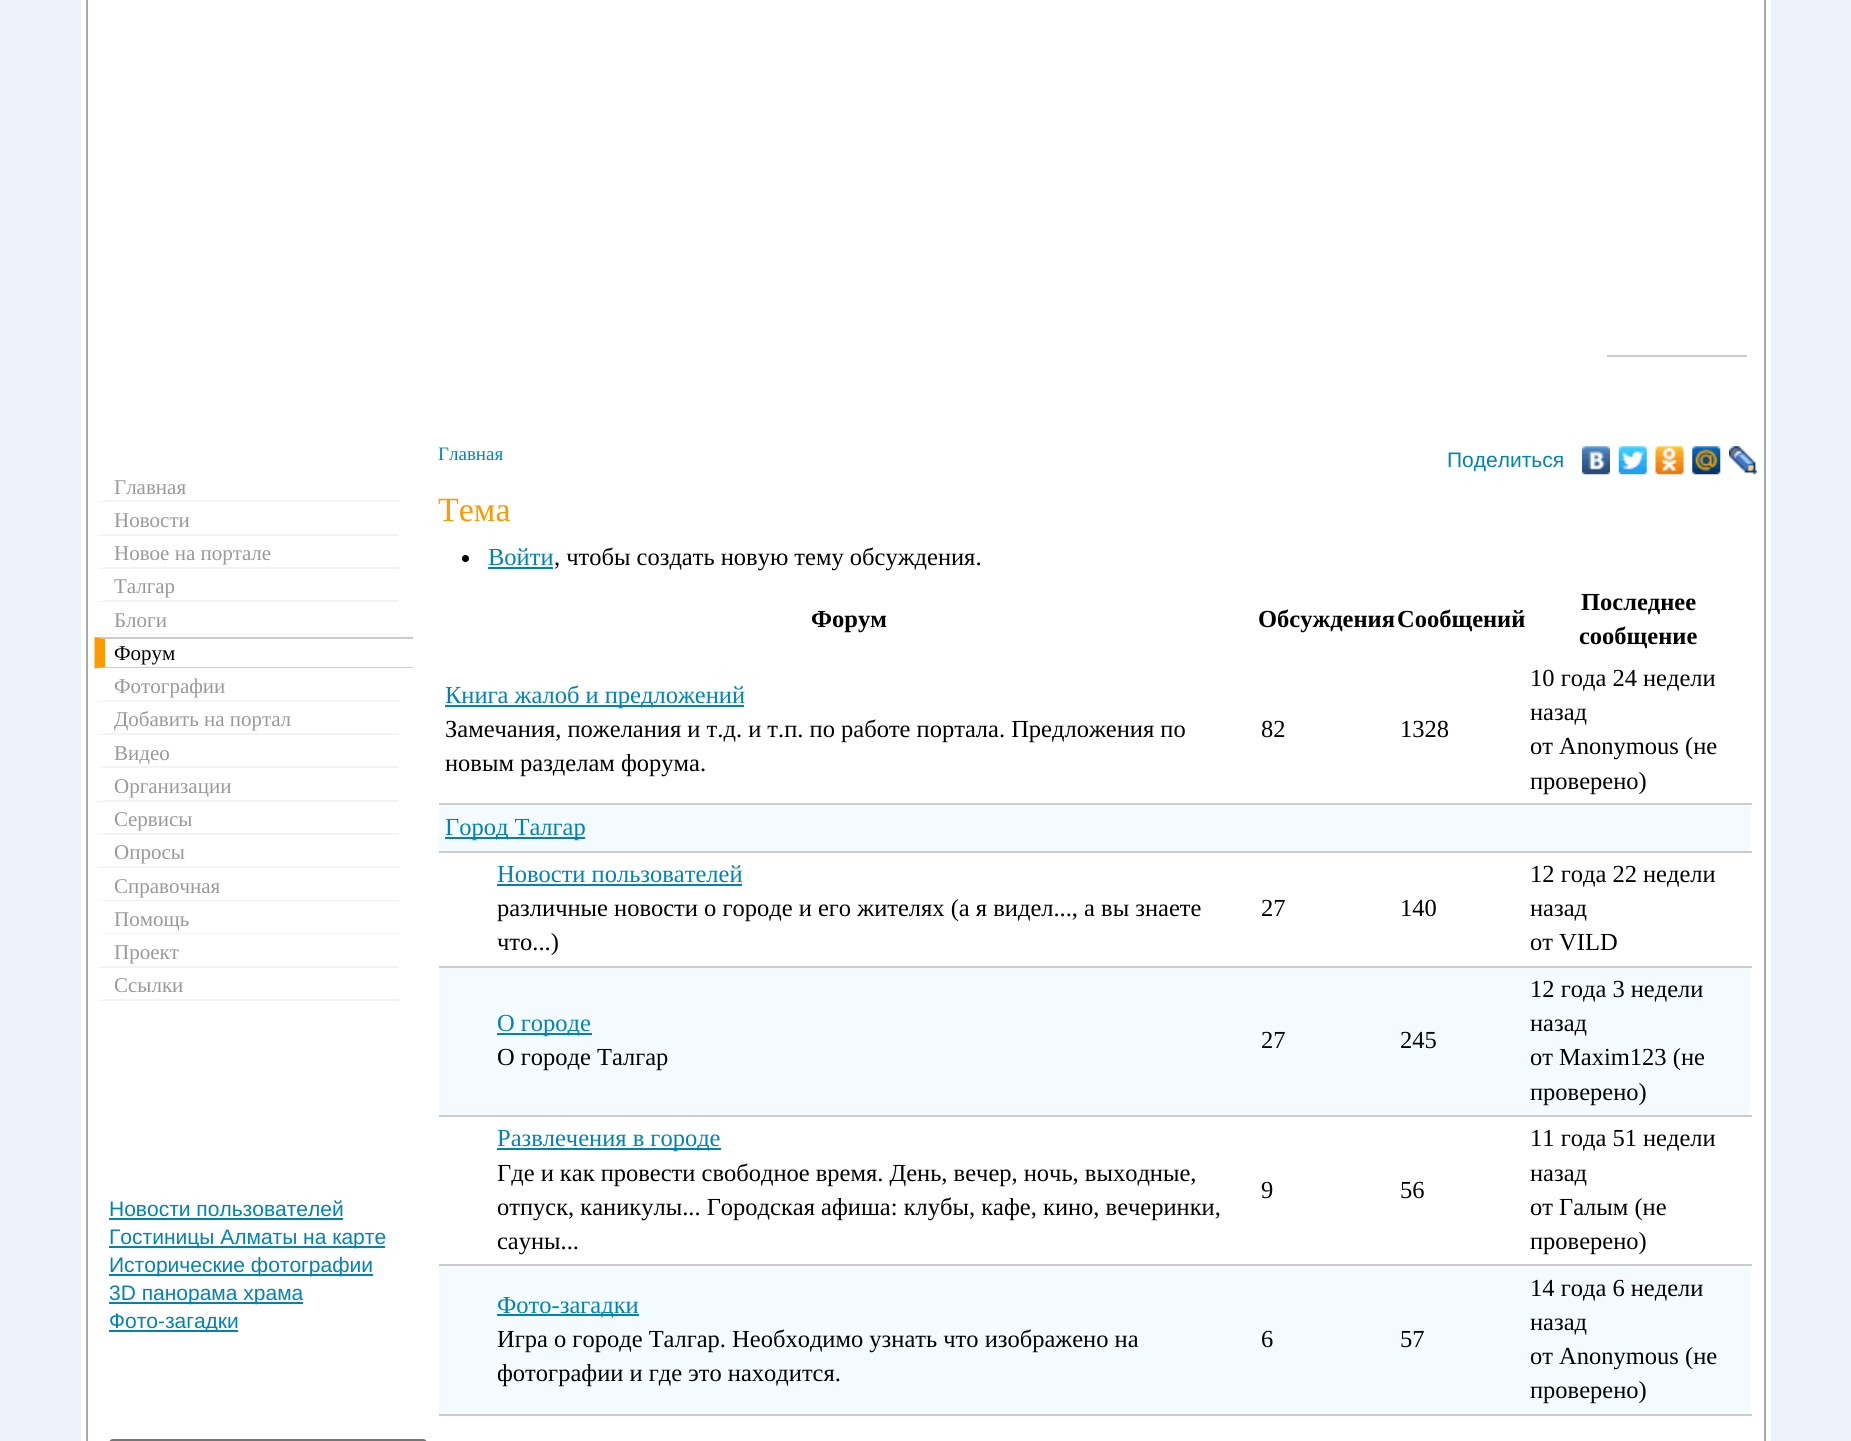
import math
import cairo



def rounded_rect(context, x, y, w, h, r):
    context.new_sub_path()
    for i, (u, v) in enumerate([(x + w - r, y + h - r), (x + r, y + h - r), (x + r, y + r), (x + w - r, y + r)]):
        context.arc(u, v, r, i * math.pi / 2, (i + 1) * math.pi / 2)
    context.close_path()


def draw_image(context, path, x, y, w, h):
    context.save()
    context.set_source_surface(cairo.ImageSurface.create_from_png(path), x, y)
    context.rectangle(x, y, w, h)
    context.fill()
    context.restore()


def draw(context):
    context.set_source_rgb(236 / 255, 243 / 255, 251 / 255)
    context.paint()
    context.set_source_rgb(1, 1, 1)
    context.rectangle(81, 0, 1690, 1441)
    context.fill()
    context.set_source_rgb(167 / 255, 169 / 255, 172 / 255)
    context.rectangle(1764, 0, 2, 1441)
    context.fill()
    context.rectangle(86, 0, 2, 1441)
    context.fill()
    context.set_source_rgb(204 / 255, 204 / 255, 204 / 255)
    context.rectangle(1607, 355, 140, 2)
    context.fill()
    context.set_source_rgb(243 / 255, 243 / 255, 243 / 255)
    context.new_path()
    context.move_to(399, 502)
    context.line_to(94, 502)
    context.line_to(105, 500)
    context.line_to(399, 500)
    context.close_path()
    context.fill()
    context.set_source_rgb(1, 1, 1)
    context.new_path()
    context.move_to(94.5, 502)
    context.line_to(94.5, 471)
    context.line_to(105, 472.5)
    context.line_to(105, 500.5)
    context.close_path()
    context.fill()
    context.set_source_rgb(243 / 255, 243 / 255, 243 / 255)
    context.new_path()
    context.move_to(399, 536)
    context.line_to(94, 536)
    context.line_to(105, 534)
    context.line_to(399, 534)
    context.close_path()
    context.fill()
    context.new_path()
    context.move_to(399, 569)
    context.line_to(94, 569)
    context.line_to(105, 567)
    context.line_to(399, 567)
    context.close_path()
    context.fill()
    context.set_source_rgb(1, 1, 1)
    context.new_path()
    context.move_to(94.5, 569)
    context.line_to(94.5, 537)
    context.line_to(105, 539)
    context.line_to(105, 567)
    context.close_path()
    context.fill()
    context.set_source_rgb(243 / 255, 243 / 255, 243 / 255)
    context.new_path()
    context.move_to(399, 602)
    context.line_to(94, 602)
    context.line_to(105, 600)
    context.line_to(399, 600)
    context.close_path()
    context.fill()
    context.set_source_rgb(1, 1, 1)
    context.new_path()
    context.move_to(94.5, 602)
    context.line_to(94.5, 570.5)
    context.line_to(105, 572)
    context.line_to(105, 600)
    context.close_path()
    context.fill()
    context.set_source_rgb(243 / 255, 243 / 255, 243 / 255)
    context.new_path()
    context.move_to(399, 635)
    context.line_to(94, 635)
    context.line_to(105, 634)
    context.line_to(399, 634)
    context.close_path()
    context.fill()
    context.set_source_rgb(204 / 255, 204 / 255, 204 / 255)
    context.new_path()
    context.move_to(94, 637)
    context.line_to(413, 637)
    context.line_to(413, 639)
    context.line_to(105, 639)
    context.close_path()
    context.fill()
    context.new_path()
    context.move_to(413, 668)
    context.line_to(94, 668)
    context.line_to(105, 667)
    context.line_to(413, 667)
    context.close_path()
    context.fill()
    context.set_source_rgb(1, 153 / 255, 0)
    context.new_path()
    context.move_to(94.5, 668.5)
    context.line_to(94.5, 637)
    context.line_to(105, 639)
    context.line_to(105, 667)
    context.close_path()
    context.fill()
    context.set_source_rgb(243 / 255, 243 / 255, 243 / 255)
    context.new_path()
    context.move_to(399, 702)
    context.line_to(94, 702)
    context.line_to(105, 700)
    context.line_to(399, 700)
    context.close_path()
    context.fill()
    context.set_source_rgb(1, 1, 1)
    context.new_path()
    context.move_to(94.5, 702)
    context.line_to(94.5, 670)
    context.line_to(105, 672)
    context.line_to(105, 700)
    context.close_path()
    context.fill()
    context.set_source_rgb(243 / 255, 243 / 255, 243 / 255)
    context.new_path()
    context.move_to(399, 735)
    context.line_to(94, 735)
    context.line_to(105, 733)
    context.line_to(399, 733)
    context.close_path()
    context.fill()
    context.set_source_rgb(1, 1, 1)
    context.new_path()
    context.move_to(94.5, 735)
    context.line_to(94.5, 703.5)
    context.line_to(105, 705)
    context.line_to(105, 733)
    context.close_path()
    context.fill()
    context.set_source_rgb(243 / 255, 243 / 255, 243 / 255)
    context.new_path()
    context.move_to(399, 768)
    context.line_to(94, 768)
    context.line_to(105, 766)
    context.line_to(399, 766)
    context.close_path()
    context.fill()
    context.set_source_rgb(1, 1, 1)
    context.new_path()
    context.move_to(94.5, 768)
    context.line_to(94.5, 737)
    context.line_to(105, 738.5)
    context.line_to(105, 766.5)
    context.close_path()
    context.fill()
    context.set_source_rgb(243 / 255, 243 / 255, 243 / 255)
    context.new_path()
    context.move_to(399, 802)
    context.line_to(94, 802)
    context.line_to(105, 800)
    context.line_to(399, 800)
    context.close_path()
    context.fill()
    context.new_path()
    context.move_to(399, 835)
    context.line_to(94, 835)
    context.line_to(105, 833)
    context.line_to(399, 833)
    context.close_path()
    context.fill()
    context.set_source_rgb(1, 1, 1)
    context.new_path()
    context.move_to(94.5, 835)
    context.line_to(94.5, 803)
    context.line_to(105, 805)
    context.line_to(105, 833)
    context.close_path()
    context.fill()
    context.set_source_rgb(243 / 255, 243 / 255, 243 / 255)
    context.new_path()
    context.move_to(399, 868)
    context.line_to(94, 868)
    context.line_to(105, 866)
    context.line_to(399, 866)
    context.close_path()
    context.fill()
    context.set_source_rgb(1, 1, 1)
    context.new_path()
    context.move_to(94.5, 868)
    context.line_to(94.5, 836.5)
    context.line_to(105, 838)
    context.line_to(105, 866)
    context.close_path()
    context.fill()
    context.set_source_rgb(243 / 255, 243 / 255, 243 / 255)
    context.new_path()
    context.move_to(399, 901)
    context.line_to(94, 901)
    context.line_to(105, 900)
    context.line_to(399, 900)
    context.close_path()
    context.fill()
    context.new_path()
    context.move_to(399, 934)
    context.line_to(94, 934)
    context.line_to(105, 933)
    context.line_to(399, 933)
    context.close_path()
    context.fill()
    context.set_source_rgb(1, 1, 1)
    context.new_path()
    context.move_to(94.5, 934.5)
    context.line_to(94.5, 903)
    context.line_to(105, 905)
    context.line_to(105, 933)
    context.close_path()
    context.fill()
    context.set_source_rgb(243 / 255, 243 / 255, 243 / 255)
    context.new_path()
    context.move_to(399, 968)
    context.line_to(94, 968)
    context.line_to(105, 966)
    context.line_to(399, 966)
    context.close_path()
    context.fill()
    context.set_source_rgb(1, 1, 1)
    context.new_path()
    context.move_to(94.5, 968)
    context.line_to(94.5, 936)
    context.line_to(105, 938)
    context.line_to(105, 966)
    context.close_path()
    context.fill()
    context.set_source_rgb(243 / 255, 243 / 255, 243 / 255)
    context.new_path()
    context.move_to(399, 1001)
    context.line_to(94, 1001)
    context.line_to(105, 999)
    context.line_to(399, 999)
    context.close_path()
    context.fill()
    context.set_source_rgb(1, 1, 1)
    context.new_path()
    context.move_to(94.5, 1001)
    context.line_to(94.5, 969.5)
    context.line_to(105, 971)
    context.line_to(105, 999)
    context.close_path()
    context.fill()
    context.set_source_rgb(0, 131 / 255, 179 / 255)
    context.rectangle(109, 1218, 234, 2)
    context.fill()
    context.rectangle(109, 1246, 276, 2)
    context.fill()
    context.rectangle(109, 1274, 264, 2)
    context.fill()
    context.rectangle(109, 1302, 194, 2)
    context.fill()
    context.rectangle(109, 1330, 129, 2)
    context.fill()
    rounded_rect(context, 110, 1440, 316, 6, 3)
    context.set_source_rgb(118 / 255, 118 / 255, 118 / 255)
    context.stroke()
    draw_image(context, "images/1.png", 1582, 446, 28, 29)
    draw_image(context, "images/2.png", 1618, 446, 29, 29)
    draw_image(context, "images/3.png", 1655, 446, 29, 29)
    draw_image(context, "images/4.png", 1692, 446, 29, 29)
    draw_image(context, "images/5.png", 1729, 446, 28, 29)
    context.set_source_rgb(0, 0, 0)
    context.arc(465.5, 558.5, 3.5, 0, 2 * math.pi)
    context.fill()
    context.set_source_rgb(0, 131 / 255, 179 / 255)
    context.rectangle(488, 567, 65, 2)
    context.fill()
    context.set_source_rgb(204 / 255, 204 / 255, 204 / 255)
    context.rectangle(439, 803, 1313, 2)
    context.fill()
    context.set_source_rgb(0, 131 / 255, 179 / 255)
    context.rectangle(445, 705, 299, 2)
    context.fill()
    context.set_source_rgb(204 / 255, 204 / 255, 204 / 255)
    context.rectangle(439, 851, 1313, 2)
    context.fill()
    context.set_source_rgb(244 / 255, 251 / 255, 1)
    context.rectangle(439, 805, 1311, 46)
    context.fill()
    context.set_source_rgb(0, 131 / 255, 179 / 255)
    context.rectangle(445, 837, 140, 2)
    context.fill()
    context.set_source_rgb(204 / 255, 204 / 255, 204 / 255)
    context.rectangle(439, 966, 1313, 2)
    context.fill()
    context.set_source_rgb(0, 131 / 255, 179 / 255)
    context.rectangle(497, 884, 245, 2)
    context.fill()
    context.set_source_rgb(204 / 255, 204 / 255, 204 / 255)
    context.rectangle(439, 1115, 1313, 2)
    context.fill()
    context.set_source_rgb(244 / 255, 251 / 255, 1)
    context.rectangle(439, 968, 1311, 147)
    context.fill()
    context.set_source_rgb(0, 131 / 255, 179 / 255)
    context.rectangle(497, 1033, 95, 2)
    context.fill()
    context.set_source_rgb(204 / 255, 204 / 255, 204 / 255)
    context.rectangle(439, 1264, 1313, 2)
    context.fill()
    context.set_source_rgb(0, 131 / 255, 179 / 255)
    context.rectangle(497, 1148, 224, 2)
    context.fill()
    context.set_source_rgb(204 / 255, 204 / 255, 204 / 255)
    context.rectangle(439, 1414, 1313, 2)
    context.fill()
    context.set_source_rgb(244 / 255, 251 / 255, 1)
    context.rectangle(439, 1266, 1311, 148)
    context.fill()
    context.set_source_rgb(0, 131 / 255, 179 / 255)
    context.rectangle(497, 1314, 142, 2)
    context.fill()
    context.select_font_face("Liberation Serif")
    context.set_font_size(21)
    context.set_source_rgb(153 / 255, 153 / 255, 153 / 255)
    context.move_to(114, 494)
    context.show_text("Главная")
    context.move_to(114, 527)
    context.show_text("Новости")
    context.move_to(114, 560)
    context.show_text("Новое на портале")
    context.move_to(114, 593)
    context.show_text("Талгар")
    context.move_to(114, 627)
    context.show_text("Блоги")
    context.set_source_rgb(0, 0, 0)
    context.move_to(114, 660)
    context.show_text("Форум")
    context.set_source_rgb(153 / 255, 153 / 255, 153 / 255)
    context.move_to(114, 693)
    context.show_text("Фотографии")
    context.move_to(114, 726)
    context.show_text("Добавить на портал")
    context.move_to(114, 760)
    context.show_text("Видео")
    context.move_to(114, 793)
    context.show_text("Организации")
    context.move_to(114, 826)
    context.show_text("Сервисы")
    context.move_to(114, 859)
    context.show_text("Опросы")
    context.move_to(114, 893)
    context.show_text("Справочная")
    context.move_to(114, 926)
    context.show_text("Помощь")
    context.move_to(114, 959)
    context.show_text("Проект")
    context.move_to(114, 992)
    context.show_text("Ссылки")
    context.select_font_face("Liberation Sans")
    context.set_source_rgb(0, 131 / 255, 179 / 255)
    context.move_to(109, 1216)
    context.show_text("Новости пользователей")
    context.move_to(109, 1244)
    context.show_text("Гостиницы Алматы на карте")
    context.move_to(109, 1272)
    context.show_text("Исторические фотографии")
    context.move_to(109, 1300)
    context.show_text("3D панорама храма")
    context.move_to(109, 1328)
    context.show_text("Фото-загадки")
    context.select_font_face("Liberation Serif")
    context.set_font_size(19)
    context.move_to(438, 460)
    context.show_text("Главная")
    context.set_font_size(34)
    context.set_source_rgb(1, 153 / 255, 0)
    context.move_to(438, 521)
    context.show_text("Тема")
    context.select_font_face("Liberation Sans")
    context.set_font_size(21)
    context.set_source_rgb(0, 131 / 255, 179 / 255)
    context.move_to(1447, 467)
    context.show_text("Поделиться")
    context.select_font_face("Liberation Serif")
    context.set_font_size(24.5)
    context.move_to(488, 565)
    context.show_text("Войти")
    context.set_source_rgb(0, 0, 0)
    context.move_to(554, 565)
    context.show_text(", чтобы создать новую тему обсуждения.")
    context.select_font_face("Liberation Serif", cairo.FontSlant.NORMAL, cairo.FontWeight.BOLD)
    context.move_to(811, 627)
    context.show_text("Форум")
    context.move_to(1258, 627)
    context.show_text("Обсуждения")
    context.move_to(1397, 627)
    context.show_text("Сообщений")
    context.move_to(1581, 610)
    context.show_text("Последнее")
    context.move_to(1579, 644)
    context.show_text("сообщение")
    context.select_font_face("Liberation Serif")
    context.set_source_rgb(0, 131 / 255, 179 / 255)
    context.move_to(445, 703)
    context.show_text("Книга жалоб и предложений")
    context.set_source_rgb(0, 0, 0)
    context.move_to(445, 737)
    context.show_text("Замечания, пожелания и т.д. и т.п. по работе портала. Предложения по")
    context.move_to(445, 771)
    context.show_text("новым разделам форума.")
    context.move_to(1261, 737)
    context.show_text("82")
    context.move_to(1400, 737)
    context.show_text("1328")
    context.move_to(1530, 686)
    context.show_text("10 года 24 недели")
    context.move_to(1530, 720)
    context.show_text("назад")
    context.move_to(1530, 754)
    context.show_text("от Anonymous (не")
    context.move_to(1530, 789)
    context.show_text("проверено)")
    context.set_source_rgb(0, 131 / 255, 179 / 255)
    context.move_to(445, 835)
    context.show_text("Город Талгар")
    context.move_to(497, 882)
    context.show_text("Новости пользователей")
    context.set_source_rgb(0, 0, 0)
    context.move_to(497, 916)
    context.show_text("различные новости о городе и его жителях (а я видел..., а вы знаете")
    context.move_to(497, 950)
    context.show_text("что...)")
    context.move_to(1261, 916)
    context.show_text("27")
    context.move_to(1400, 916)
    context.show_text("140")
    context.move_to(1530, 882)
    context.show_text("12 года 22 недели")
    context.move_to(1530, 916)
    context.show_text("назад")
    context.move_to(1530, 950)
    context.show_text("от VILD")
    context.set_source_rgb(0, 131 / 255, 179 / 255)
    context.move_to(497, 1031)
    context.show_text("О городе")
    context.set_source_rgb(0, 0, 0)
    context.move_to(497, 1065)
    context.show_text("О городе Талгар")
    context.move_to(1261, 1048)
    context.show_text("27")
    context.move_to(1400, 1048)
    context.show_text("245")
    context.move_to(1530, 997)
    context.show_text("12 года 3 недели")
    context.move_to(1530, 1031)
    context.show_text("назад")
    context.move_to(1530, 1065)
    context.show_text("от Maxim123 (не")
    context.move_to(1530, 1100)
    context.show_text("проверено)")
    context.set_source_rgb(0, 131 / 255, 179 / 255)
    context.move_to(497, 1146)
    context.show_text("Развлечения в городе")
    context.set_source_rgb(0, 0, 0)
    context.move_to(497, 1181)
    context.show_text("Где и как провести свободное время. День, вечер, ночь, выходные,")
    context.move_to(497, 1215)
    context.show_text("отпуск, каникулы... Городская афиша: клубы, кафе, кино, вечеринки,")
    context.move_to(497, 1249)
    context.show_text("сауны...")
    context.move_to(1261, 1198)
    context.show_text("9")
    context.move_to(1400, 1198)
    context.show_text("56")
    context.move_to(1530, 1146)
    context.show_text("11 года 51 недели")
    context.move_to(1530, 1181)
    context.show_text("назад")
    context.move_to(1530, 1215)
    context.show_text("от Галым (не")
    context.move_to(1530, 1249)
    context.show_text("проверено)")
    context.set_source_rgb(0, 131 / 255, 179 / 255)
    context.move_to(497, 1313)
    context.show_text("Фото-загадки")
    context.set_source_rgb(0, 0, 0)
    context.move_to(497, 1347)
    context.show_text("Игра о городе Талгар. Необходимо узнать что изображено на")
    context.move_to(497, 1381)
    context.show_text("фотографии и где это находится.")
    context.move_to(1261, 1347)
    context.show_text("6")
    context.move_to(1400, 1347)
    context.show_text("57")
    context.move_to(1530, 1296)
    context.show_text("14 года 6 недели")
    context.move_to(1530, 1330)
    context.show_text("назад")
    context.move_to(1530, 1364)
    context.show_text("от Anonymous (не")
    context.move_to(1530, 1398)
    context.show_text("проверено)")


surface = cairo.ImageSurface(cairo.Format.RGB24, 1851, 1441)
context = cairo.Context(surface)
options = cairo.FontOptions()
options.set_hint_metrics(cairo.HintMetrics.OFF)
options.set_hint_style(cairo.HintStyle.NONE)
context.set_font_options(options)
context.set_miter_limit(4)
draw(context)
surface.write_to_png("out.png")
